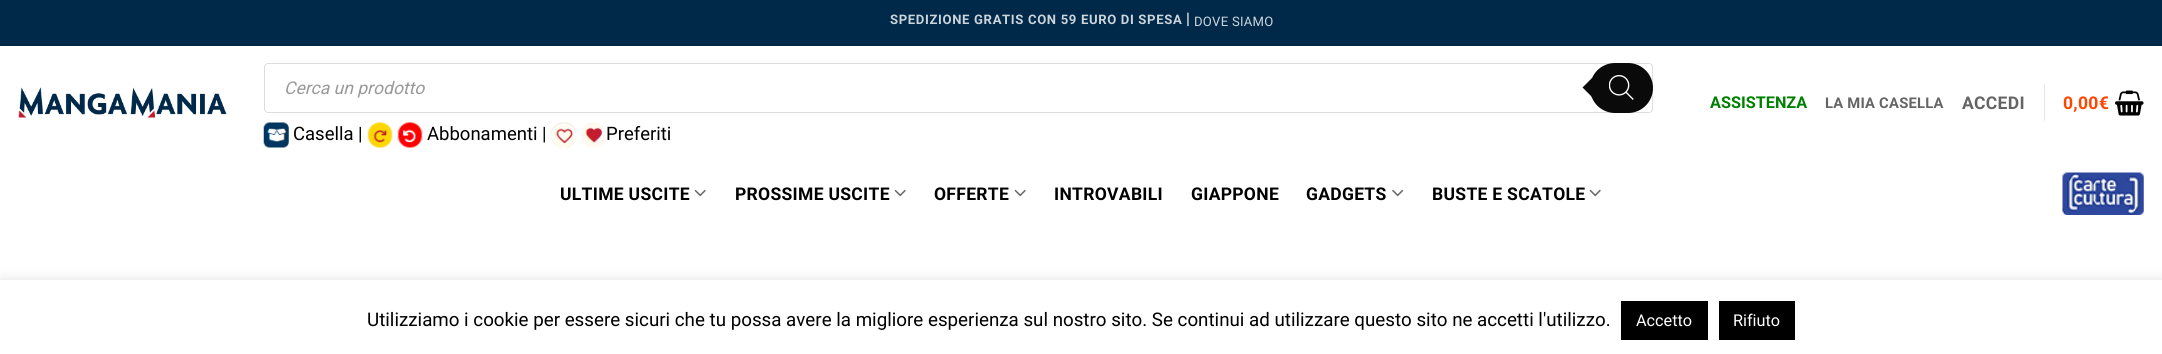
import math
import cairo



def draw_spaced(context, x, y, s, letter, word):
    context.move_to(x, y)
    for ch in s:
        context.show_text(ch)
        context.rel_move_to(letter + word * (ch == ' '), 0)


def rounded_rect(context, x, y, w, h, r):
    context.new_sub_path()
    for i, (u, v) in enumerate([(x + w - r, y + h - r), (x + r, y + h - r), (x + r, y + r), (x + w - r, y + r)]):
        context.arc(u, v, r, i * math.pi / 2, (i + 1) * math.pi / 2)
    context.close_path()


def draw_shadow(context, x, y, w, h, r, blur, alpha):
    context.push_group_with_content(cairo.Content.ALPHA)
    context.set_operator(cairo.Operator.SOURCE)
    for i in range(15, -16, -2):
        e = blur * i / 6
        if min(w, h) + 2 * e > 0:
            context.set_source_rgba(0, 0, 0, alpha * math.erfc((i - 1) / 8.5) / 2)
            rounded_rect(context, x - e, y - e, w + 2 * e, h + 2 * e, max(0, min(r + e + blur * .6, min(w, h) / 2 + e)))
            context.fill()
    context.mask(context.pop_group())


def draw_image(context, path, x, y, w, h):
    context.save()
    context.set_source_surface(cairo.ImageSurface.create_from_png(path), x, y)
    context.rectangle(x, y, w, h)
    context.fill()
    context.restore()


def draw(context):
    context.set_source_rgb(1, 1, 1)
    context.paint()
    context.set_source_rgb(0, 41 / 255, 73 / 255)
    context.rectangle(0, 0, 2162, 46)
    context.fill()
    draw_image(context, "images/1.png", 18, 87, 209, 31)
    rounded_rect(context, 264.5, 63.5, 1388, 49, 3.5)
    context.set_source_rgb(221 / 255, 221 / 255, 221 / 255)
    context.set_line_width(1)
    context.stroke()
    context.set_source_rgb(10 / 255, 10 / 255, 10 / 255)
    rounded_rect(context, 1590, 63, 63, 50, 25)
    context.fill()
    context.new_path()
    context.move_to(1592.5, 77.5)
    context.line_to(1592.5, 97.5)
    context.line_to(1582.5, 87.5)
    context.close_path()
    context.fill()
    draw_image(context, "images/2.png", 1609, 75, 25, 25)
    draw_image(context, "images/3.png", 263, 122, 26, 26)
    draw_image(context, "images/4.png", 367, 122, 26, 26)
    draw_image(context, "images/5.png", 397, 122, 26, 26)
    draw_image(context, "images/6.png", 551, 122, 26, 26)
    draw_image(context, "images/7.png", 581, 122, 26, 26)
    context.set_source_rgb(230 / 255, 230 / 255, 230 / 255)
    context.rectangle(2044, 84, 1, 37)
    context.fill()
    draw_image(context, "images/8.png", 2115, 90, 29, 26)
    draw_image(context, "images/9.png", 694, 189, 12, 8)
    draw_image(context, "images/9.png", 894, 189, 12, 8)
    draw_image(context, "images/9.png", 1014, 189, 12, 8)
    draw_image(context, "images/10.png", 1392, 189, 12, 8)
    draw_image(context, "images/9.png", 1589, 189, 12, 8)
    draw_image(context, "images/11.png", 2062, 172, 82, 43)
    context.set_source_rgb(172 / 255, 171 / 255, 171 / 255)
    draw_shadow(context, 0, 279, 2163, 75, 0, 6, 0.3)
    context.set_source_rgb(1, 1, 1)
    context.rectangle(0, 280, 2162, 74)
    context.fill()
    context.set_source_rgb(0, 0, 0)
    context.rectangle(1621, 301, 87, 39)
    context.fill()
    context.rectangle(1719, 301, 76, 39)
    context.fill()
    context.select_font_face("Roboto", cairo.FontSlant.NORMAL, cairo.FontWeight.BOLD)
    context.set_font_size(13.1)
    context.set_source_rgb(204 / 255, 212 / 255, 219 / 255)
    draw_spaced(context, 890, 24, "SPEDIZIONE GRATIS CON 59 EURO DI SPESA", 0.65, 0)
    context.select_font_face("Roboto")
    context.set_font_size(16)
    context.set_source_rgb(1, 1, 1)
    context.move_to(1186, 24)
    context.show_text("|")
    context.set_font_size(13.1)
    context.set_source_rgb(204 / 255, 212 / 255, 219 / 255)
    draw_spaced(context, 1194, 26, "DOVE SIAMO", 0.25, 0)
    context.select_font_face("Roboto", cairo.FontSlant.ITALIC)
    context.set_font_size(17.5)
    context.set_source_rgb(153 / 255, 153 / 255, 153 / 255)
    context.move_to(284, 94)
    context.show_text("Cerca un prodotto")
    context.select_font_face("Roboto")
    context.set_font_size(18.5)
    context.set_source_rgb(0, 0, 0)
    context.move_to(293, 140)
    context.show_text("Casella |")
    context.move_to(427, 140)
    context.show_text("Abbonamenti |")
    context.move_to(606, 140)
    context.show_text("Preferiti")
    context.select_font_face("Roboto", cairo.FontSlant.NORMAL, cairo.FontWeight.BOLD)
    context.set_font_size(16.25)
    context.set_source_rgb(0, 128 / 255, 0)
    context.move_to(1710, 108)
    context.show_text("ASSISTENZA")
    context.set_font_size(14.75)
    context.set_source_rgb(101 / 255, 101 / 255, 101 / 255)
    draw_spaced(context, 1825, 108, "LA MIA CASELLA", 0.25, 0)
    context.set_font_size(17.5)
    draw_spaced(context, 1962, 109, "ACCEDI", 0.3, 0)
    context.set_source_rgb(1, 69 / 255, 0)
    draw_spaced(context, 2063, 109, "0,00€", 0.3, 0)
    context.set_source_rgb(0, 0, 0)
    draw_spaced(context, 560, 200, "ULTIME USCITE", 0.3, 0)
    draw_spaced(context, 735, 200, "PROSSIME USCITE", 0.3, 0)
    draw_spaced(context, 934, 200, "OFFERTE", 0.3, 0)
    draw_spaced(context, 1054, 200, "INTROVABILI", 0.3, 0)
    draw_spaced(context, 1191, 200, "GIAPPONE", 0.3, 0)
    draw_spaced(context, 1306, 200, "GADGETS", 0.3, 0)
    draw_spaced(context, 1432, 200, "BUSTE E SCATOLE", 0.3, 0)
    context.select_font_face("Roboto")
    context.set_font_size(18.75)
    context.move_to(367, 326)
    context.show_text("Utilizziamo i cookie per essere sicuri che tu possa avere la migliore esperienza sul nostro sito. Se continui ad utilizzare questo sito ne accetti l'utilizzo.")
    context.set_font_size(16.25)
    context.set_source_rgb(1, 1, 1)
    context.move_to(1636, 326)
    context.show_text("Accetto")
    context.move_to(1733, 326)
    context.show_text("Rifiuto")


surface = cairo.ImageSurface(cairo.Format.RGB24, 2162, 354)
context = cairo.Context(surface)
options = cairo.FontOptions()
options.set_hint_metrics(cairo.HintMetrics.OFF)
options.set_hint_style(cairo.HintStyle.NONE)
context.set_font_options(options)
context.set_miter_limit(4)
draw(context)
surface.write_to_png("out.png")
